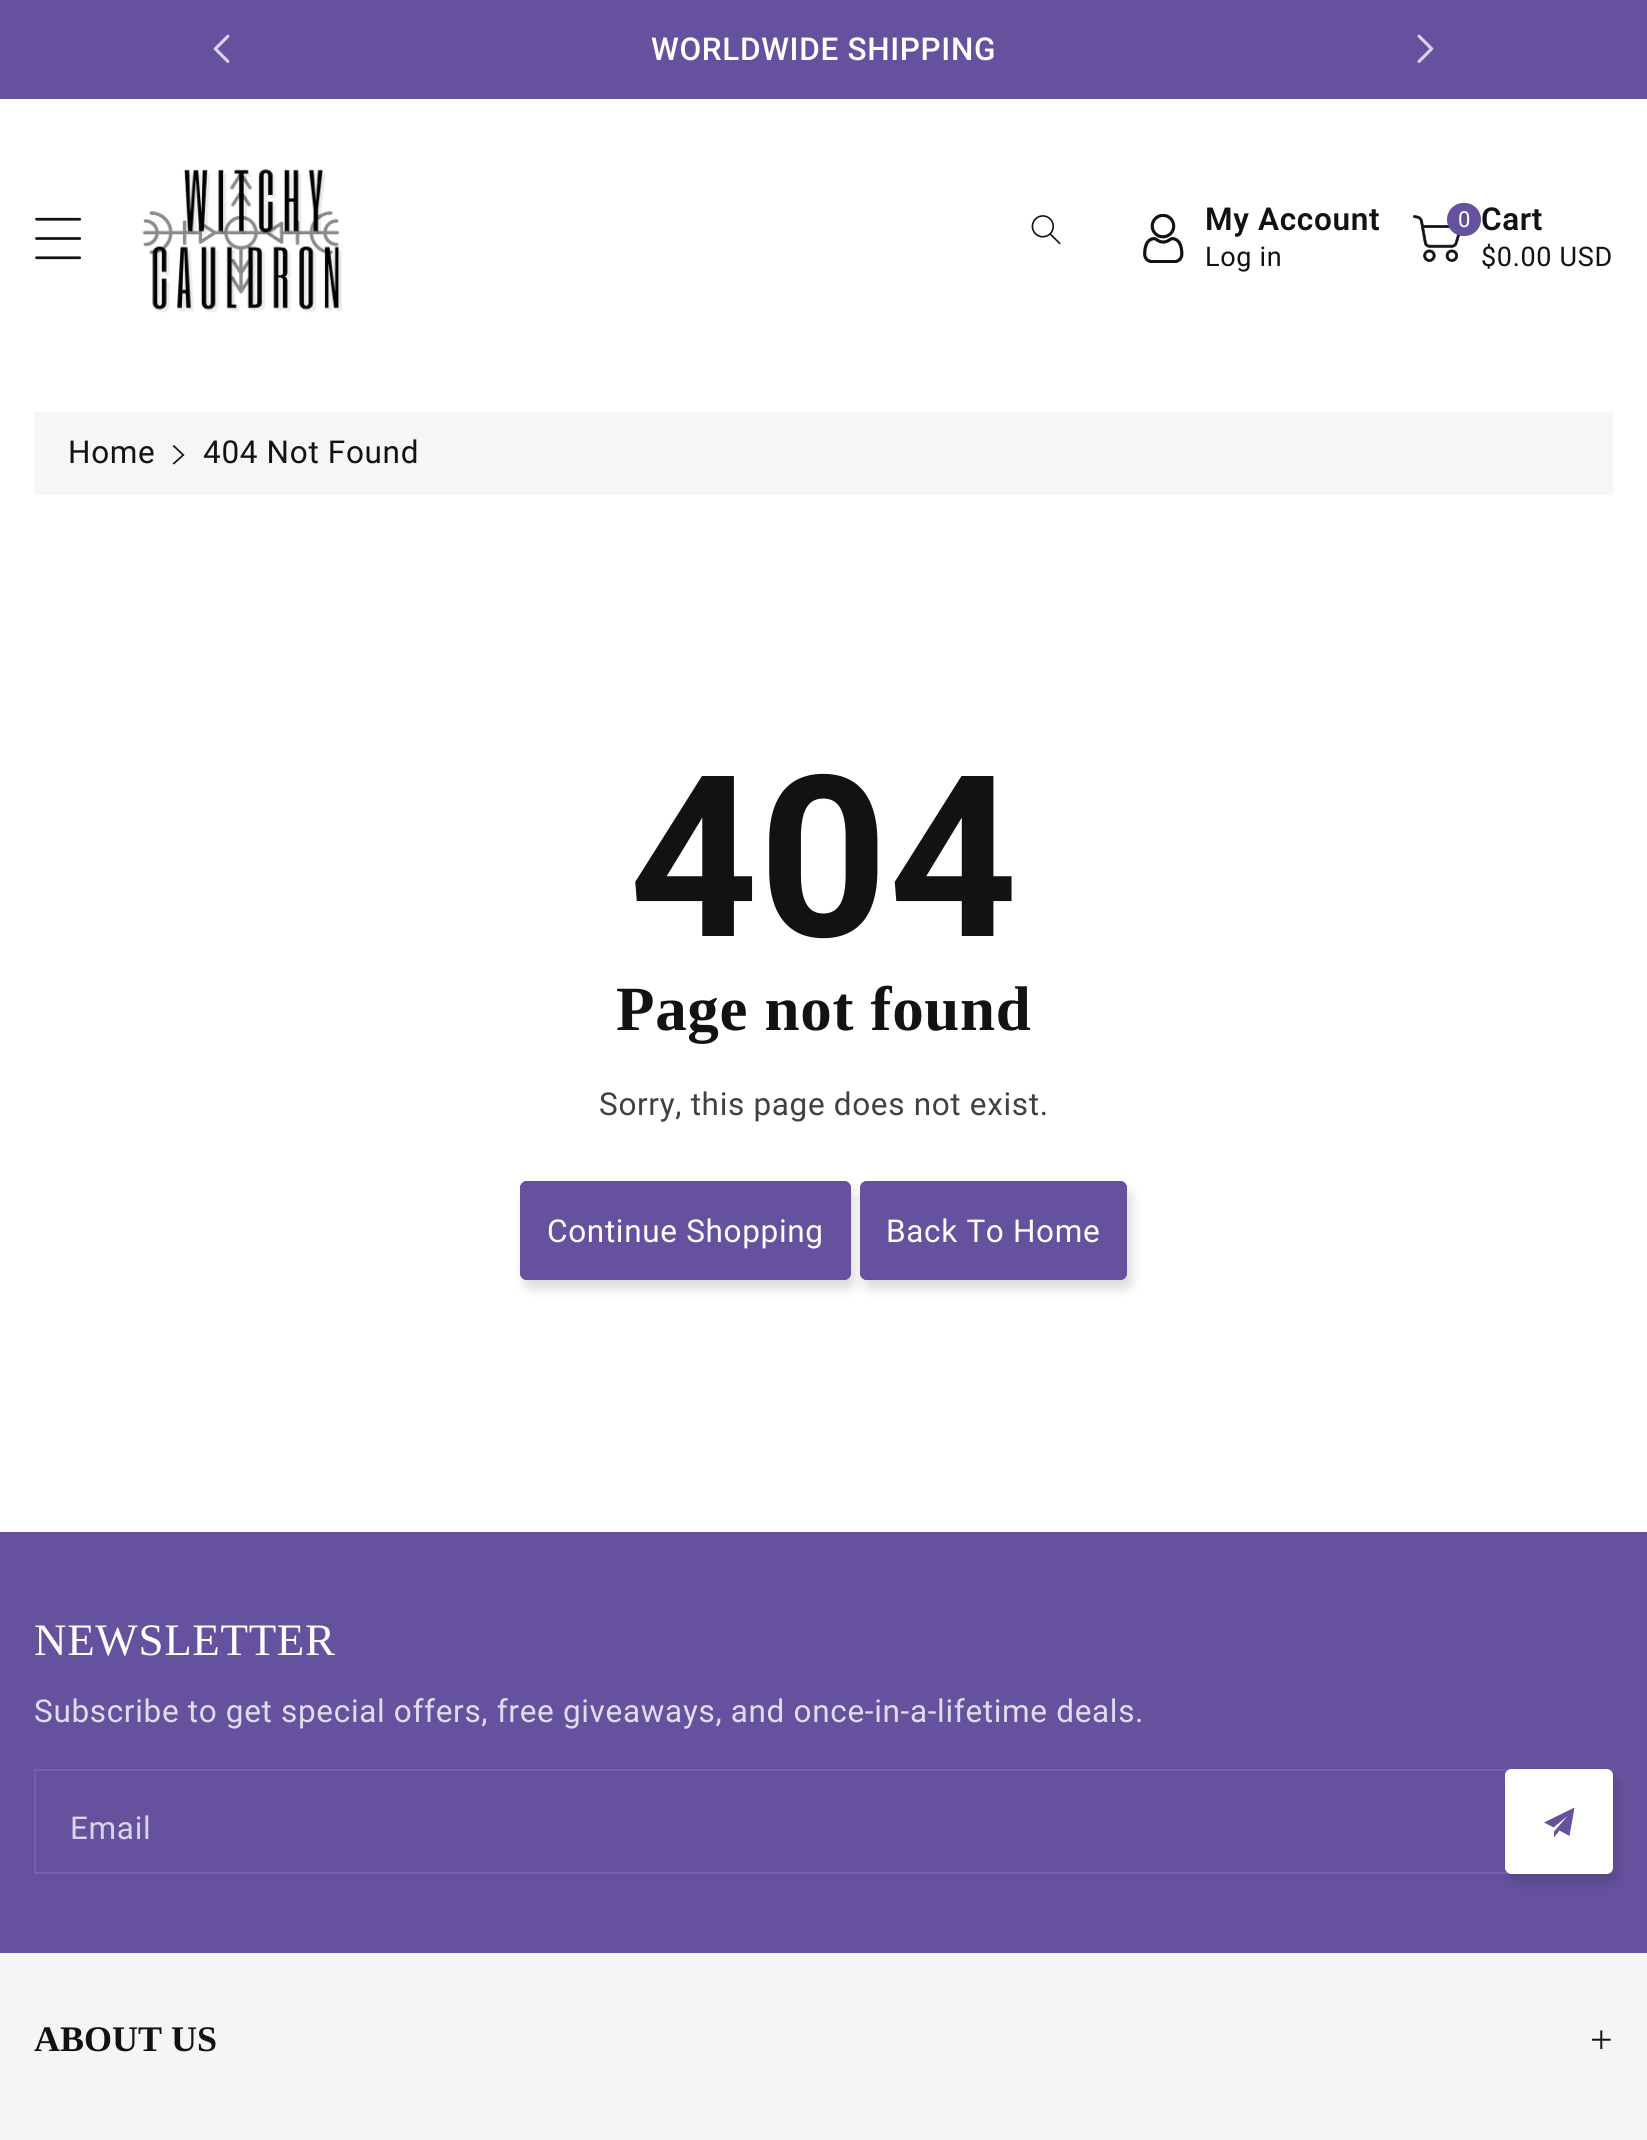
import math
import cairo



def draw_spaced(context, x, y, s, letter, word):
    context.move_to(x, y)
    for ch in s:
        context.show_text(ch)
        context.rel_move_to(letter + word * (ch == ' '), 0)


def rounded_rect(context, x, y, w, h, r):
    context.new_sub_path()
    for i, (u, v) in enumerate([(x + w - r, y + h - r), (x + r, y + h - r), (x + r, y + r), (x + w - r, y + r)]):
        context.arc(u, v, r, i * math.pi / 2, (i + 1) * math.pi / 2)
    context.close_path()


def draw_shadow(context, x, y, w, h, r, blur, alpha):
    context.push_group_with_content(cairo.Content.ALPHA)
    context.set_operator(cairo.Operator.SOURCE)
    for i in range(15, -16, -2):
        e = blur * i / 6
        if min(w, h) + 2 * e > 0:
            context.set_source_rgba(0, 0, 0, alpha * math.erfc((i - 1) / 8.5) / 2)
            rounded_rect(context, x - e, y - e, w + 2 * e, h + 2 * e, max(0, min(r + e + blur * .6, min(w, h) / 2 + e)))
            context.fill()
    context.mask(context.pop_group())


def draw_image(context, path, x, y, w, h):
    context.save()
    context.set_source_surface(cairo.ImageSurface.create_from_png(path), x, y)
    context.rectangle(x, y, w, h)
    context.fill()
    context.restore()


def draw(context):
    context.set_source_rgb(1, 1, 1)
    context.paint()
    context.set_source_rgb(101 / 255, 81 / 255, 158 / 255)
    context.rectangle(0, 0, 1647, 99)
    context.fill()
    draw_image(context, "images/1.png", 213, 34, 17, 29)
    draw_image(context, "images/2.png", 1417, 34, 17, 29)
    draw_image(context, "images/3.png", 35, 217, 47, 43)
    draw_image(context, "images/4.png", 142, 169, 200, 144)
    draw_image(context, "images/5.png", 1031, 215, 30, 30)
    draw_image(context, "images/6.png", 1143, 214, 41, 49)
    draw_image(context, "images/7.png", 1413, 215, 47, 47)
    rounded_rect(context, 1447, 203, 34, 33, 16.5)
    context.fill()
    context.set_source_rgb(246 / 255, 246 / 255, 246 / 255)
    context.rectangle(34, 412, 1579, 83)
    context.fill()
    context.set_source_rgb(18 / 255, 18 / 255, 18 / 255)
    context.new_path()
    context.move_to(172.5, 463.5)
    context.line_to(174, 464.5)
    context.line_to(184.5, 455)
    context.line_to(174, 445)
    context.line_to(172.5, 446)
    context.line_to(182, 455)
    context.close_path()
    context.fill()
    context.set_source_rgb(18 / 255, 18 / 255, 18 / 255)
    draw_shadow(context, 524, 1190, 331, 99, 7, 5.5, 0.15)
    draw_shadow(context, 864, 1190, 268, 99, 7, 5.5, 0.15)
    context.set_source_rgb(101 / 255, 81 / 255, 158 / 255)
    rounded_rect(context, 520, 1181, 331, 99, 7)
    context.fill()
    rounded_rect(context, 521, 1182, 329, 97, 6)
    context.stroke()
    rounded_rect(context, 860, 1181, 267, 99, 7)
    context.fill()
    rounded_rect(context, 861, 1182, 265, 97, 6)
    context.stroke()
    context.set_source_rgb(245 / 255, 245 / 255, 245 / 255)
    context.rectangle(0, 1953, 1647, 187)
    context.fill()
    context.set_source_rgb(101 / 255, 81 / 255, 158 / 255)
    context.rectangle(0, 1532, 1647, 421)
    context.fill()
    context.set_source_rgb(1, 1, 1)
    rounded_rect(context, 1505, 1769, 108, 105, 7)
    context.fill()
    context.save()
    context.set_fill_rule(cairo.FillRule.EVEN_ODD)
    context.new_path()
    context.move_to(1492, 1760)
    context.line_to(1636, 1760)
    context.line_to(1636, 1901)
    context.line_to(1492, 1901)
    context.close_path()
    context.move_to(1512, 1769)
    context.line_to(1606, 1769)
    context.curve_to(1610, 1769, 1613, 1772, 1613, 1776)
    context.line_to(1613, 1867)
    context.curve_to(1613, 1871, 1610, 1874, 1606, 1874)
    context.line_to(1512, 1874)
    context.curve_to(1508, 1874, 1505, 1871, 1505, 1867)
    context.line_to(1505, 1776)
    context.curve_to(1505, 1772, 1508, 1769, 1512, 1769)
    context.close_path()
    context.clip()
    context.set_source_rgb(18 / 255, 18 / 255, 18 / 255)
    draw_shadow(context, 1510, 1778, 108, 105, 7, 5.5, 0.15)
    context.restore()
    context.set_source_rgb(101 / 255, 81 / 255, 158 / 255)
    context.new_path()
    context.move_to(1544, 1822.5)
    context.line_to(1553.5, 1827.5)
    context.line_to(1567.5, 1816)
    context.line_to(1554, 1831.5)
    context.line_to(1554, 1837.5)
    context.line_to(1559.5, 1830.5)
    context.line_to(1569.5, 1836)
    context.line_to(1574.5, 1807.5)
    context.close_path()
    context.fill()
    rounded_rect(context, 1506, 1770, 106, 103, 6)
    context.set_source_rgb(1, 1, 1)
    context.stroke()
    context.rectangle(35, 1770, 1577, 103)
    context.set_source_rgba(1, 1, 1, 0.1)
    context.stroke()
    context.select_font_face("Roboto Medium")
    context.set_font_size(31.5)
    context.set_source_rgb(1, 1, 1)
    draw_spaced(context, 651, 60, "WORLDWIDE SHIPPING", 0.67, 0)
    context.select_font_face("Roboto SemiBold")
    context.set_source_rgb(18 / 255, 18 / 255, 18 / 255)
    draw_spaced(context, 1205, 230, "My Account", 0.67, 0)
    context.select_font_face("Roboto")
    context.set_font_size(27)
    draw_spaced(context, 1205, 266, "Log in", 0.67, 0)
    context.set_font_size(22)
    context.set_source_rgb(1, 1, 1)
    draw_spaced(context, 1458, 227, "0", 0.67, 0)
    context.select_font_face("Roboto SemiBold")
    context.set_font_size(31.5)
    context.set_source_rgb(18 / 255, 18 / 255, 18 / 255)
    draw_spaced(context, 1481, 230, "Cart", 0.67, 0)
    context.select_font_face("Roboto")
    context.set_font_size(27)
    draw_spaced(context, 1481, 266, "$0.00 USD", 0.67, 0)
    context.set_font_size(31.5)
    draw_spaced(context, 68, 463, "Home", 0.67, 0)
    draw_spaced(context, 203, 463, "404 Not Found", 0.67, 0)
    context.select_font_face("Roboto", cairo.FontSlant.NORMAL, cairo.FontWeight.BOLD)
    context.set_font_size(225)
    draw_spaced(context, 629, 936, "404", 0.67, 0)
    context.select_font_face("Liberation Serif", cairo.FontSlant.NORMAL, cairo.FontWeight.BOLD)
    context.set_font_size(63)
    draw_spaced(context, 616, 1030, "Page not found", 0.67, 0)
    context.select_font_face("Roboto")
    context.set_font_size(31.5)
    context.set_source_rgb(65 / 255, 65 / 255, 65 / 255)
    draw_spaced(context, 599, 1115, "Sorry, this page does not exist.", 0.67, 0)
    context.set_source_rgb(1, 1, 1)
    draw_spaced(context, 547, 1242, "Continue Shopping", 0.67, 0)
    draw_spaced(context, 886, 1242, "Back To Home", 0.67, 0)
    context.select_font_face("Liberation Serif")
    context.set_font_size(45)
    draw_spaced(context, 34, 1655, "NEWSLETTER", 0.67, 0)
    context.select_font_face("Roboto")
    context.set_font_size(31.5)
    context.set_source_rgb(224 / 255, 220 / 255, 236 / 255)
    draw_spaced(context, 34, 1722, "Subscribe to get special offers, free giveaways, and once-in-a-lifetime deals.", 0.67, 0)
    context.set_source_rgb(217 / 255, 212 / 255, 231 / 255)
    draw_spaced(context, 70, 1839, "Email", 0.67, 0)
    context.select_font_face("Liberation Serif", cairo.FontSlant.NORMAL, cairo.FontWeight.BOLD)
    context.set_font_size(36)
    context.set_source_rgb(18 / 255, 18 / 255, 18 / 255)
    context.move_to(34, 2051)
    context.show_text("ABOUT US")
    context.select_font_face("Liberation Serif")
    context.set_font_size(40)
    context.move_to(1590, 2053)
    context.show_text("+")


surface = cairo.ImageSurface(cairo.Format.RGB24, 1647, 2140)
context = cairo.Context(surface)
options = cairo.FontOptions()
options.set_hint_metrics(cairo.HintMetrics.OFF)
options.set_hint_style(cairo.HintStyle.NONE)
context.set_font_options(options)
context.set_miter_limit(4)
draw(context)
surface.write_to_png("out.png")
